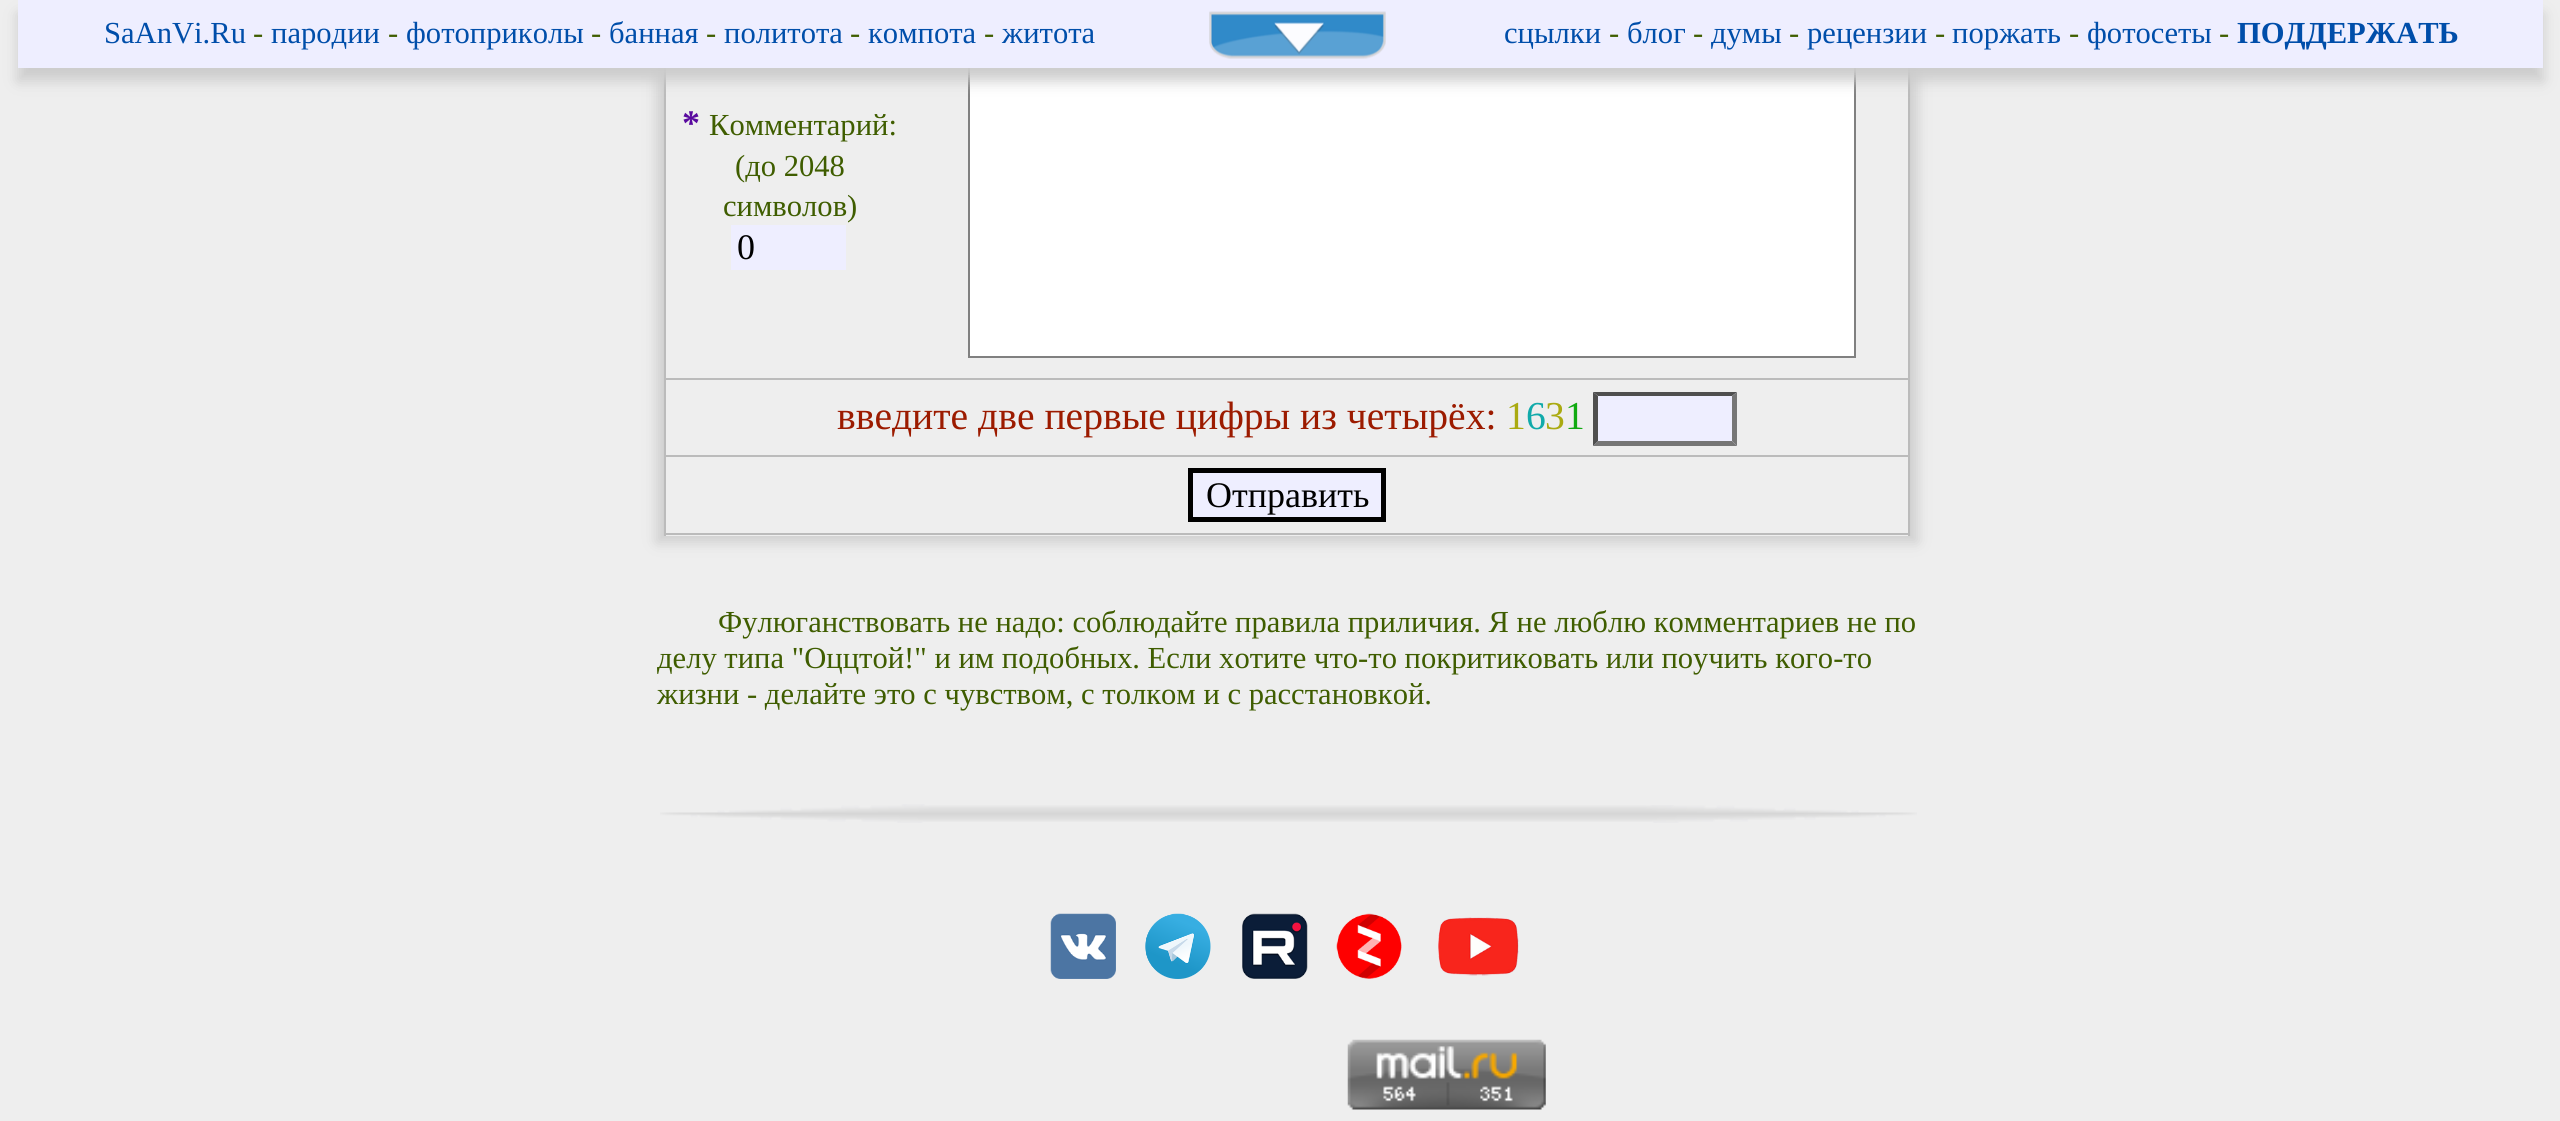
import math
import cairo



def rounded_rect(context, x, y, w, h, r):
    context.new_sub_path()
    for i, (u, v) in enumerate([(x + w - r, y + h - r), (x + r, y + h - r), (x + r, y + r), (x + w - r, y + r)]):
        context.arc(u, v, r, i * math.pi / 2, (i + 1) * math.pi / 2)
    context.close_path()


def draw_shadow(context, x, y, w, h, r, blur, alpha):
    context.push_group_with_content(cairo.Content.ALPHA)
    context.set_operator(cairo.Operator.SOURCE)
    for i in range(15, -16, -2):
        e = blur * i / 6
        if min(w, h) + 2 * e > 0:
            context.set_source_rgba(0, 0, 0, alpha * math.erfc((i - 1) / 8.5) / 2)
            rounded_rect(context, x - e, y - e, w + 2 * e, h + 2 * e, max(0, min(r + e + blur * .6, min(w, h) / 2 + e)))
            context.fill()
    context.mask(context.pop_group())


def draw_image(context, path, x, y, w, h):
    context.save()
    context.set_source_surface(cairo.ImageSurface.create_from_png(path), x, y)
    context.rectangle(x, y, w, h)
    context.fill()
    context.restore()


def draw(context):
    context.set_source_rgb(238 / 255, 238 / 255, 238 / 255)
    context.paint()
    context.save()
    context.set_fill_rule(cairo.FillRule.EVEN_ODD)
    context.new_path()
    context.move_to(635, 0)
    context.line_to(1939, 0)
    context.line_to(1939, 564)
    context.line_to(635, 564)
    context.close_path()
    context.move_to(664, -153)
    context.line_to(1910, -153)
    context.line_to(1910, 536)
    context.line_to(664, 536)
    context.close_path()
    context.clip()
    context.set_source_rgb(204 / 255, 204 / 255, 204 / 255)
    draw_shadow(context, 657, -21, 1260, 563, 0, 7, 1)
    context.restore()
    context.set_source_rgb(187 / 255, 187 / 255, 187 / 255)
    context.rectangle(1908, 68, 2, 468)
    context.fill()
    context.rectangle(664, 533, 1246, 2)
    context.fill()
    context.rectangle(664, 68, 2, 468)
    context.fill()
    context.set_source_rgb(1, 1, 1)
    context.rectangle(970, 68, 884, 288)
    context.fill()
    context.rectangle(969, 8, 886, 349)
    context.set_source_rgb(128 / 255, 128 / 255, 128 / 255)
    context.stroke()
    context.set_source_rgb(204 / 255, 204 / 255, 204 / 255)
    draw_shadow(context, 18, 14, 2525, 67, 0, 7, 1)
    context.set_source_rgb(238 / 255, 238 / 255, 1)
    context.rectangle(18, 0, 2525, 68)
    context.fill()
    draw_image(context, "images/1.png", 1209, 11, 177, 48)
    context.set_source_rgb(187 / 255, 187 / 255, 187 / 255)
    context.rectangle(664, 378, 1246, 2)
    context.fill()
    context.set_source_rgb(238 / 255, 238 / 255, 1)
    context.rectangle(731, 225, 115, 45)
    context.fill()
    context.set_source_rgb(187 / 255, 187 / 255, 187 / 255)
    context.rectangle(664, 455, 1246, 2)
    context.fill()
    context.set_source_rgb(238 / 255, 238 / 255, 1)
    context.rectangle(1593, 392, 144, 54)
    context.fill()
    context.set_source_rgb(79 / 255, 79 / 255, 79 / 255)
    context.new_path()
    context.move_to(1593, 392)
    context.line_to(1737, 392)
    context.line_to(1732, 396)
    context.line_to(1598, 396)
    context.close_path()
    context.fill()
    context.set_source_rgb(118 / 255, 118 / 255, 118 / 255)
    context.new_path()
    context.move_to(1737, 392)
    context.line_to(1737, 446)
    context.line_to(1732, 441)
    context.line_to(1732, 396)
    context.close_path()
    context.fill()
    context.new_path()
    context.move_to(1737, 446)
    context.line_to(1593, 446)
    context.line_to(1598, 441)
    context.line_to(1732, 441)
    context.close_path()
    context.fill()
    context.set_source_rgb(79 / 255, 79 / 255, 79 / 255)
    context.new_path()
    context.move_to(1593, 446)
    context.line_to(1593, 392)
    context.line_to(1598, 396)
    context.line_to(1598, 441)
    context.close_path()
    context.fill()
    context.set_source_rgb(238 / 255, 238 / 255, 1)
    context.rectangle(1190.5, 470.5, 193, 49)
    context.fill_preserve()
    context.set_source_rgb(0, 0, 0)
    context.set_line_width(5)
    context.stroke()
    draw_image(context, "images/2.png", 660, 804, 627, 19)
    draw_image(context, "images/3.png", 1287, 805, 630, 18)
    draw_image(context, "images/4.png", 1050, 913, 66, 66)
    draw_image(context, "images/5.png", 1145, 913, 66, 66)
    draw_image(context, "images/6.png", 1242, 913, 66, 66)
    draw_image(context, "images/7.png", 1336, 913, 66, 66)
    draw_image(context, "images/8.png", 1438, 917, 81, 59)
    draw_image(context, "images/9.png", 1347, 1039, 199, 71)
    context.select_font_face("Liberation Serif")
    context.set_font_size(30.6)
    context.set_source_rgb(0, 78 / 255, 170 / 255)
    context.move_to(104, 43)
    context.show_text("SaAnVi.Ru")
    context.set_source_rgb(63 / 255, 93 / 255, 0)
    context.move_to(253, 43)
    context.show_text("-")
    context.set_source_rgb(0, 78 / 255, 170 / 255)
    context.move_to(271, 43)
    context.show_text("пародии")
    context.set_source_rgb(63 / 255, 93 / 255, 0)
    context.move_to(388, 43)
    context.show_text("-")
    context.set_source_rgb(0, 78 / 255, 170 / 255)
    context.move_to(406, 43)
    context.show_text("фотоприколы")
    context.set_source_rgb(63 / 255, 93 / 255, 0)
    context.move_to(591, 43)
    context.show_text("-")
    context.set_source_rgb(0, 78 / 255, 170 / 255)
    context.move_to(609, 43)
    context.show_text("банная")
    context.set_source_rgb(63 / 255, 93 / 255, 0)
    context.move_to(706, 43)
    context.show_text("-")
    context.set_source_rgb(0, 78 / 255, 170 / 255)
    context.move_to(724, 43)
    context.show_text("политота")
    context.set_source_rgb(63 / 255, 93 / 255, 0)
    context.move_to(850, 43)
    context.show_text("-")
    context.set_source_rgb(0, 78 / 255, 170 / 255)
    context.move_to(868, 43)
    context.show_text("компота")
    context.set_source_rgb(63 / 255, 93 / 255, 0)
    context.move_to(984, 43)
    context.show_text("-")
    context.set_source_rgb(0, 78 / 255, 170 / 255)
    context.move_to(1002, 43)
    context.show_text("житота")
    context.move_to(1504, 43)
    context.show_text("сцылки")
    context.set_source_rgb(63 / 255, 93 / 255, 0)
    context.move_to(1609, 43)
    context.show_text("-")
    context.set_source_rgb(0, 78 / 255, 170 / 255)
    context.move_to(1627, 43)
    context.show_text("блог")
    context.set_source_rgb(63 / 255, 93 / 255, 0)
    context.move_to(1693, 43)
    context.show_text("-")
    context.set_source_rgb(0, 78 / 255, 170 / 255)
    context.move_to(1711, 43)
    context.show_text("думы")
    context.set_source_rgb(63 / 255, 93 / 255, 0)
    context.move_to(1789, 43)
    context.show_text("-")
    context.set_source_rgb(0, 78 / 255, 170 / 255)
    context.move_to(1807, 43)
    context.show_text("рецензии")
    context.set_source_rgb(63 / 255, 93 / 255, 0)
    context.move_to(1935, 43)
    context.show_text("-")
    context.set_source_rgb(0, 78 / 255, 170 / 255)
    context.move_to(1952, 43)
    context.show_text("поржать")
    context.set_source_rgb(63 / 255, 93 / 255, 0)
    context.move_to(2069, 43)
    context.show_text("-")
    context.set_source_rgb(0, 78 / 255, 170 / 255)
    context.move_to(2087, 43)
    context.show_text("фотосеты")
    context.set_source_rgb(63 / 255, 93 / 255, 0)
    context.move_to(2219, 43)
    context.show_text("-")
    context.select_font_face("Liberation Serif", cairo.FontSlant.NORMAL, cairo.FontWeight.BOLD)
    context.set_source_rgb(0, 78 / 255, 170 / 255)
    context.move_to(2237, 43)
    context.show_text("ПОДДЕРЖАТЬ")
    context.set_font_size(36)
    context.set_source_rgb(89 / 255, 9 / 255, 159 / 255)
    context.move_to(682, 135)
    context.show_text("*")
    context.select_font_face("Liberation Serif")
    context.set_font_size(30.6)
    context.set_source_rgb(63 / 255, 93 / 255, 0)
    context.move_to(709, 135)
    context.show_text("Комментарий:")
    context.move_to(735, 176)
    context.show_text("(до 2048")
    context.move_to(723, 216)
    context.show_text("символов)")
    context.set_font_size(36)
    context.set_source_rgb(0, 0, 0)
    context.move_to(737, 259)
    context.show_text("0")
    context.set_font_size(39.6)
    context.set_source_rgb(156 / 255, 27 / 255, 0)
    context.move_to(837, 429)
    context.show_text("введите две первые цифры из четырёх:")
    context.set_source_rgb(170 / 255, 170 / 255, 17 / 255)
    context.move_to(1506, 429)
    context.show_text("1")
    context.set_source_rgb(17 / 255, 170 / 255, 170 / 255)
    context.move_to(1526, 429)
    context.show_text("6")
    context.set_source_rgb(170 / 255, 170 / 255, 17 / 255)
    context.move_to(1545, 429)
    context.show_text("3")
    context.set_source_rgb(17 / 255, 170 / 255, 17 / 255)
    context.move_to(1565, 429)
    context.show_text("1")
    context.set_font_size(36)
    context.set_source_rgb(0, 0, 0)
    context.move_to(1206, 507)
    context.show_text("Отправить")
    context.set_font_size(30.6)
    context.set_source_rgb(63 / 255, 93 / 255, 0)
    context.move_to(718, 632)
    context.show_text("Фулюганствовать не надо: соблюдайте правила приличия. Я не люблю комментариев не по")
    context.move_to(657, 668)
    context.show_text("делу типа \"Оццтой!\" и им подобных. Если хотите что-то покритиковать или поучить кого-то")
    context.move_to(657, 704)
    context.show_text("жизни - делайте это с чувством, с толком и с расстановкой.")


surface = cairo.ImageSurface(cairo.Format.RGB24, 2560, 1121)
context = cairo.Context(surface)
options = cairo.FontOptions()
options.set_hint_metrics(cairo.HintMetrics.OFF)
options.set_hint_style(cairo.HintStyle.NONE)
context.set_font_options(options)
context.set_miter_limit(4)
draw(context)
surface.write_to_png("out.png")
